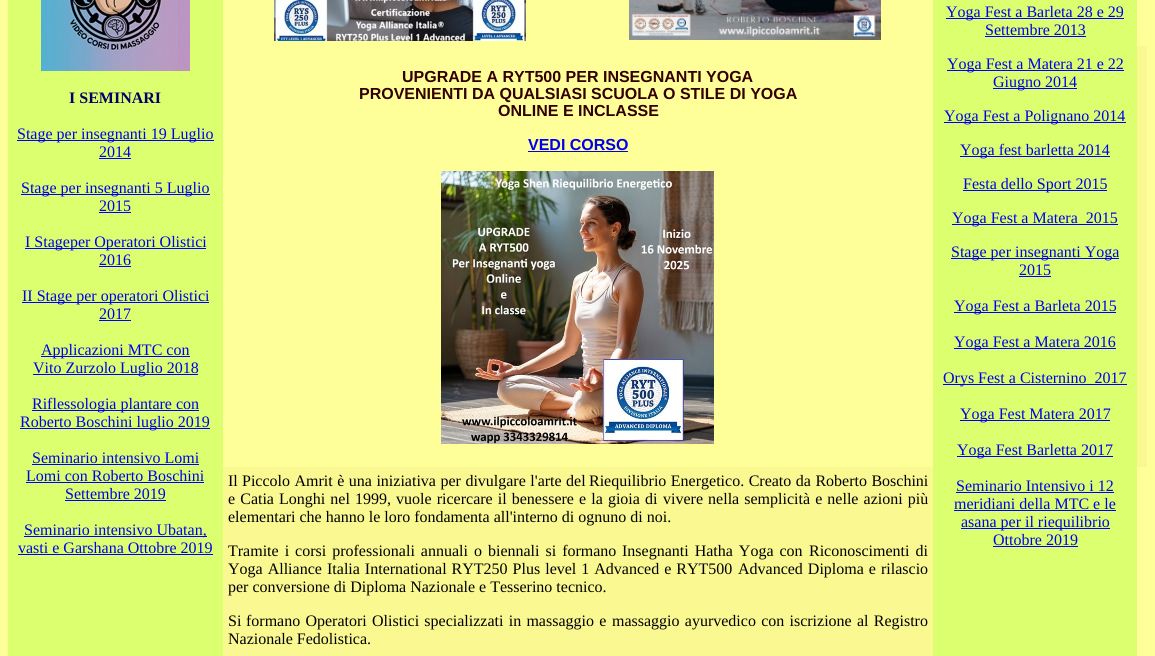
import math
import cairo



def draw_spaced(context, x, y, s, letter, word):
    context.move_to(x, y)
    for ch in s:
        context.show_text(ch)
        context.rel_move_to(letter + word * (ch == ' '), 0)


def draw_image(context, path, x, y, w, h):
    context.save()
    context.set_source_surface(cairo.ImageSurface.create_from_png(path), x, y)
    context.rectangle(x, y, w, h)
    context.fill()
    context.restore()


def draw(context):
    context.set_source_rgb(1, 1, 153 / 255)
    context.paint()
    draw_image(context, "images/1.png", 274, 0, 252, 41)
    draw_image(context, "images/2.png", 629, 0, 252, 40)
    context.set_source_rgb(219 / 255, 1, 111 / 255)
    context.rectangle(8, 0, 215, 656)
    context.fill()
    draw_image(context, "images/3.png", 41, 0, 149, 71)
    context.set_source_rgb(0, 0, 238 / 255)
    context.rectangle(17, 140, 197, 1)
    context.fill()
    context.rectangle(99, 158, 32, 1)
    context.fill()
    context.rectangle(21, 194, 189, 1)
    context.fill()
    context.rectangle(99, 212, 32, 1)
    context.fill()
    context.rectangle(25, 248, 181, 1)
    context.fill()
    context.rectangle(99, 266, 32, 1)
    context.fill()
    context.rectangle(22, 302, 187, 1)
    context.fill()
    context.rectangle(99, 320, 32, 1)
    context.fill()
    context.rectangle(41, 356, 149, 1)
    context.fill()
    context.rectangle(33, 374, 165, 1)
    context.fill()
    context.rectangle(32, 410, 167, 1)
    context.fill()
    context.rectangle(20, 428, 190, 1)
    context.fill()
    context.rectangle(32, 464, 167, 1)
    context.fill()
    context.rectangle(26, 482, 178, 1)
    context.fill()
    context.rectangle(65, 500, 101, 1)
    context.fill()
    context.rectangle(24, 536, 183, 1)
    context.fill()
    context.rectangle(18, 554, 195, 1)
    context.fill()
    context.set_source_rgb(219 / 255, 1, 111 / 255)
    context.rectangle(933, 0, 204, 656)
    context.fill()
    context.set_source_rgb(0, 0, 238 / 255)
    context.rectangle(946, 18, 178, 1)
    context.fill()
    context.rectangle(985, 36, 101, 1)
    context.fill()
    context.rectangle(947, 70, 177, 1)
    context.fill()
    context.rectangle(993, 88, 84, 1)
    context.fill()
    context.rectangle(944, 122, 182, 1)
    context.fill()
    context.rectangle(960, 156, 150, 1)
    context.fill()
    context.rectangle(963, 190, 144, 1)
    context.fill()
    context.rectangle(952, 224, 166, 1)
    context.fill()
    context.rectangle(951, 258, 168, 1)
    context.fill()
    context.rectangle(1019, 276, 32, 1)
    context.fill()
    context.rectangle(954, 312, 162, 1)
    context.fill()
    context.rectangle(954, 348, 162, 1)
    context.fill()
    context.rectangle(943, 384, 184, 1)
    context.fill()
    context.rectangle(960, 420, 150, 1)
    context.fill()
    context.rectangle(957, 456, 156, 1)
    context.fill()
    context.rectangle(956, 492, 158, 1)
    context.fill()
    context.rectangle(954, 510, 162, 1)
    context.fill()
    context.rectangle(961, 528, 149, 1)
    context.fill()
    context.rectangle(993, 546, 85, 1)
    context.fill()
    context.rectangle(528, 151, 100, 1)
    context.fill()
    draw_image(context, "images/4.png", 441, 171, 273, 273)
    context.set_source_rgb(250 / 255, 248 / 255, 145 / 255)
    context.rectangle(1137, 46, 10, 421)
    context.fill()
    context.rectangle(223, 467, 710, 189)
    context.fill()
    context.select_font_face("Liberation Serif", cairo.FontSlant.NORMAL, cairo.FontWeight.BOLD)
    context.set_font_size(16)
    context.set_source_rgb(0, 0, 102 / 255)
    context.move_to(69, 103)
    context.show_text("I SEMINARI")
    context.select_font_face("Liberation Serif")
    context.set_source_rgb(0, 0, 238 / 255)
    context.move_to(17, 139)
    context.show_text("Stage per insegnanti 19 Luglio")
    context.move_to(99, 157)
    context.show_text("2014")
    context.move_to(21, 193)
    context.show_text("Stage per insegnanti 5 Luglio")
    context.move_to(99, 211)
    context.show_text("2015")
    context.move_to(25, 247)
    context.show_text("I Stageper Operatori Olistici")
    context.move_to(99, 265)
    context.show_text("2016")
    context.move_to(22, 301)
    context.show_text("II Stage per operatori Olistici")
    context.move_to(99, 319)
    context.show_text("2017")
    context.move_to(41, 355)
    context.show_text("Applicazioni MTC con")
    context.move_to(33, 373)
    context.show_text("Vito Zurzolo Luglio 2018")
    context.move_to(32, 409)
    context.show_text("Riflessologia plantare con")
    context.move_to(20, 427)
    context.show_text("Roberto Boschini luglio 2019")
    context.move_to(32, 463)
    context.show_text("Seminario intensivo Lomi")
    context.move_to(26, 481)
    context.show_text("Lomi con Roberto Boschini")
    context.move_to(65, 499)
    context.show_text("Settembre 2019")
    context.move_to(24, 535)
    context.show_text("Seminario intensivo Ubatan,")
    context.move_to(18, 553)
    context.show_text("vasti e Garshana Ottobre 2019")
    context.move_to(946, 17)
    context.show_text("Yoga Fest a Barleta 28 e 29")
    context.move_to(985, 35)
    context.show_text("Settembre 2013")
    context.move_to(947, 69)
    context.show_text("Yoga Fest a Matera 21 e 22")
    context.move_to(993, 87)
    context.show_text("Giugno 2014")
    context.move_to(944, 121)
    context.show_text("Yoga Fest a Polignano 2014")
    context.move_to(960, 155)
    context.show_text("Yoga fest barletta 2014")
    context.move_to(963, 189)
    context.show_text("Festa dello Sport 2015")
    context.move_to(952, 223)
    context.show_text("Yoga Fest a Matera  2015")
    context.move_to(951, 257)
    context.show_text("Stage per insegnanti Yoga")
    context.move_to(1019, 275)
    context.show_text("2015")
    context.move_to(954, 311)
    context.show_text("Yoga Fest a Barleta 2015")
    context.move_to(954, 347)
    context.show_text("Yoga Fest a Matera 2016")
    context.move_to(943, 383)
    context.show_text("Orys Fest a Cisternino  2017")
    context.move_to(960, 419)
    context.show_text("Yoga Fest Matera 2017")
    context.move_to(957, 455)
    context.show_text("Yoga Fest Barletta 2017")
    context.move_to(956, 491)
    context.show_text("Seminario Intensivo i 12")
    context.move_to(954, 509)
    context.show_text("meridiani della MTC e le")
    context.move_to(961, 527)
    context.show_text("asana per il riequilibrio")
    context.move_to(993, 545)
    context.show_text("Ottobre 2019")
    context.select_font_face("Liberation Sans", cairo.FontSlant.NORMAL, cairo.FontWeight.BOLD)
    context.set_source_rgb(51 / 255, 0, 0)
    context.move_to(402, 82)
    context.show_text("UPGRADE A RYT500 PER INSEGNANTI YOGA")
    context.move_to(359, 99)
    context.show_text("PROVENIENTI DA QUALSIASI SCUOLA O STILE DI YOGA")
    context.move_to(498, 116)
    context.show_text("ONLINE E INCLASSE")
    context.set_source_rgb(0, 0, 238 / 255)
    context.move_to(528, 150)
    context.show_text("VEDI CORSO")
    context.select_font_face("Liberation Serif")
    context.set_source_rgb(0, 0, 0)
    context.move_to(228, 486)
    context.show_text("Il")
    draw_spaced(context, 242, 486, "Piccolo Amrit è una iniziativa per divulgare l'arte del", 0, 0.5)
    draw_spaced(context, 589, 486, "Riequilibrio Energetico. Creato da Roberto Boschini", 0, 0.5)
    draw_spaced(context, 228, 504, "e Catia", 0, 1.1)
    draw_spaced(context, 279, 504, "Longhi nel 1999, vuole ricercare il benessere e la gioia di", 0, 1.1)
    draw_spaced(context, 663, 504, "vivere nella semplicità e nelle azioni più", 0, 1.1)
    context.move_to(228, 522)
    context.show_text("elementari che hanno le loro fondamenta all'interno di ognuno di noi.")
    draw_spaced(context, 228, 556, "Tramite i corsi professionali annuali o biennali si formano", 0, 2)
    draw_spaced(context, 622, 556, "Insegnanti Hatha Yoga con", 0, 2)
    draw_spaced(context, 809, 556, "Riconoscimenti di", 0, 2)
    draw_spaced(context, 228, 574, "Yoga Alliance", 0, 1)
    draw_spaced(context, 327, 574, "Italia International RYT250 Plus level 1 Advanced e RYT500", 0, 1)
    draw_spaced(context, 738, 574, "Advanced Diploma e", 0, 1)
    context.move_to(881, 574)
    context.show_text("rilascio")
    context.move_to(228, 592)
    context.show_text("per conversione di Diploma Nazionale e Tesserino tecnico.")
    context.move_to(228, 626)
    context.show_text("Si")
    draw_spaced(context, 246, 626, "formano Operatori Olistici specializzati in massaggio e", 0, 1.25)
    draw_spaced(context, 612, 626, "massaggio ayurvedico con iscrizione al Registro", 0, 1.25)
    context.move_to(228, 644)
    context.show_text("Nazionale Fedolistica.")


surface = cairo.ImageSurface(cairo.Format.RGB24, 1155, 656)
context = cairo.Context(surface)
options = cairo.FontOptions()
options.set_hint_metrics(cairo.HintMetrics.OFF)
options.set_hint_style(cairo.HintStyle.NONE)
context.set_font_options(options)
context.set_miter_limit(4)
draw(context)
surface.write_to_png("out.png")
